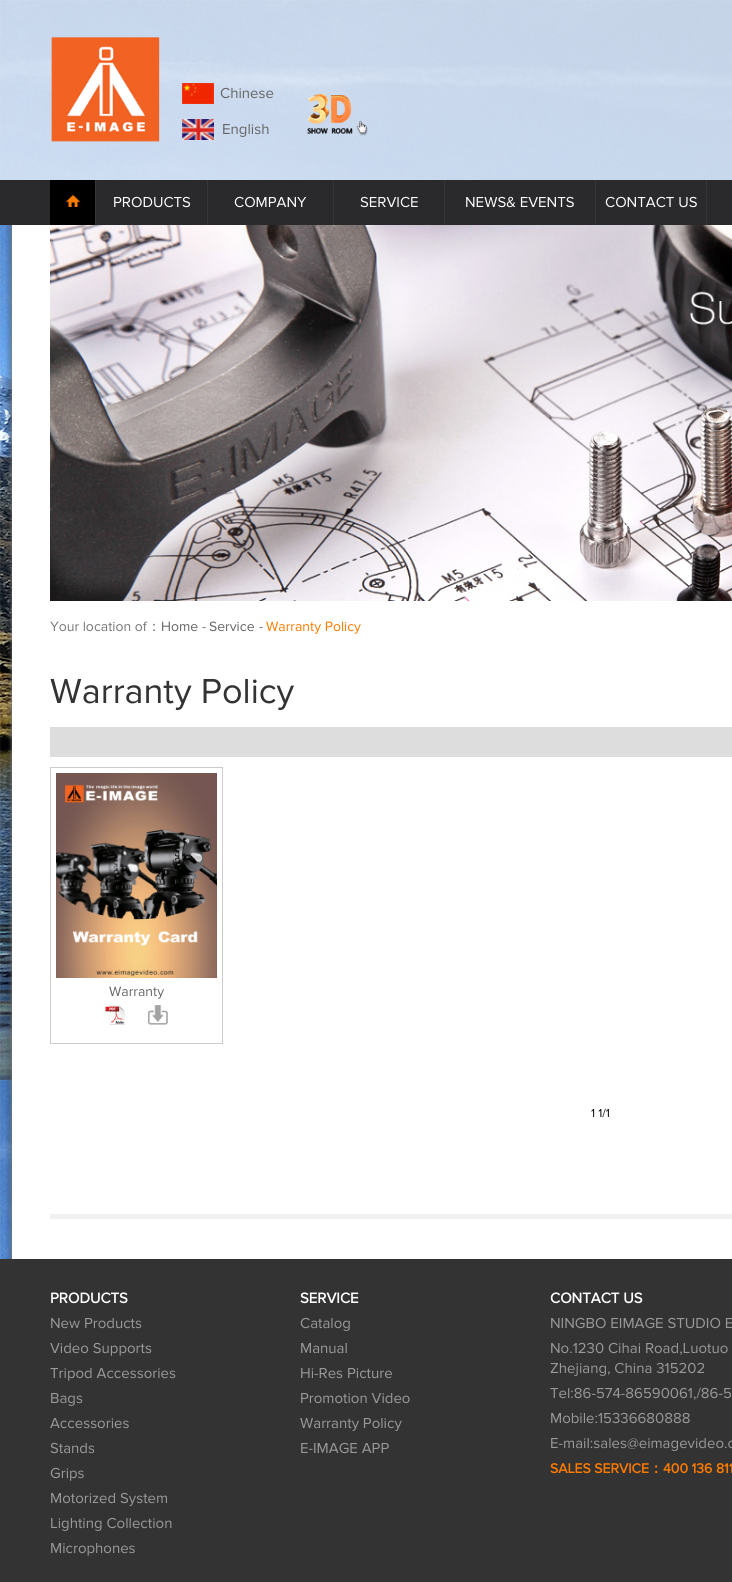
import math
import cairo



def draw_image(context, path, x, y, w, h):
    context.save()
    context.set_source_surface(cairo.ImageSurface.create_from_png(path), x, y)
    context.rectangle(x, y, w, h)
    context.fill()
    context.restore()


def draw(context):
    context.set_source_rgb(1, 1, 1)
    context.paint()
    draw_image(context, "images/1.png", 0, 0, 732, 1259)
    context.set_source_rgba(1, 1, 1, 0.7)
    context.rectangle(0, 0, 732, 180)
    context.fill()
    draw_image(context, "images/2.png", 51, 37, 109, 105)
    draw_image(context, "images/3.png", 182, 83, 32, 21)
    draw_image(context, "images/4.png", 307, 93, 61, 43)
    draw_image(context, "images/5.png", 182, 119, 32, 21)
    context.set_source_rgb(42 / 255, 41 / 255, 43 / 255)
    context.rectangle(0, 180, 732, 45)
    context.fill()
    context.set_source_rgb(0, 0, 0)
    context.rectangle(50, 180, 45, 45)
    context.fill()
    context.set_source_rgb(54 / 255, 54 / 255, 54 / 255)
    context.rectangle(95, 180, 1, 45)
    context.fill()
    draw_image(context, "images/6.png", 66, 194, 14, 13)
    context.rectangle(207, 180, 1, 45)
    context.fill()
    context.rectangle(333, 180, 1, 45)
    context.fill()
    context.rectangle(444, 180, 1, 45)
    context.fill()
    context.rectangle(595, 180, 1, 45)
    context.fill()
    context.rectangle(706, 180, 1, 45)
    context.fill()
    draw_image(context, "images/7.png", 5, 225, 727, 1034)
    draw_image(context, "images/8.png", 50, 225, 682, 376)
    context.set_source_rgb(221 / 255, 221 / 255, 221 / 255)
    context.rectangle(50, 727, 682, 30)
    context.fill()
    context.rectangle(50.5, 767.5, 172, 276)
    context.set_source_rgb(204 / 255, 204 / 255, 204 / 255)
    context.set_line_width(1)
    context.stroke()
    draw_image(context, "images/9.png", 56, 773, 161, 205)
    draw_image(context, "images/10.png", 105, 1005, 20, 20)
    draw_image(context, "images/11.png", 148, 1005, 20, 20)
    context.set_source_rgb(241 / 255, 241 / 255, 241 / 255)
    context.rectangle(50, 1214, 682, 5)
    context.fill()
    context.set_source_rgb(51 / 255, 51 / 255, 51 / 255)
    context.rectangle(0, 1259, 732, 323)
    context.fill()
    context.select_font_face("Proxima Nova")
    context.set_font_size(15)
    context.set_source_rgb(102 / 255, 102 / 255, 102 / 255)
    context.move_to(220, 98)
    context.show_text("Chinese")
    context.move_to(222, 134)
    context.show_text("English")
    context.set_source_rgb(1, 1, 1)
    context.move_to(113, 207)
    context.show_text("PRODUCTS")
    context.move_to(234, 207)
    context.show_text("COMPANY")
    context.move_to(360, 207)
    context.show_text("SERVICE")
    context.move_to(465, 207)
    context.show_text("NEWS& EVENTS")
    context.move_to(605, 207)
    context.show_text("CONTACT US")
    context.set_font_size(14)
    context.set_source_rgb(119 / 255, 119 / 255, 119 / 255)
    context.move_to(50, 631)
    context.show_text("Your location of")
    context.select_font_face("WenQuanYi Zen Hei Medium")
    context.move_to(147, 631)
    context.show_text("：")
    context.select_font_face("Proxima Nova")
    context.set_source_rgb(102 / 255, 102 / 255, 102 / 255)
    context.move_to(161, 631)
    context.show_text("Home")
    context.set_source_rgb(119 / 255, 119 / 255, 119 / 255)
    context.move_to(202, 631)
    context.show_text("-")
    context.set_source_rgb(102 / 255, 102 / 255, 102 / 255)
    context.move_to(209, 631)
    context.show_text("Service")
    context.set_source_rgb(119 / 255, 119 / 255, 119 / 255)
    context.move_to(259, 631)
    context.show_text("-")
    context.set_source_rgb(1, 123 / 255, 0)
    context.move_to(266, 631)
    context.show_text("Warranty Policy")
    context.set_font_size(36)
    context.set_source_rgb(51 / 255, 51 / 255, 51 / 255)
    context.move_to(50, 703)
    context.show_text("Warranty Policy")
    context.set_font_size(14)
    context.set_source_rgb(102 / 255, 102 / 255, 102 / 255)
    context.move_to(109, 996)
    context.show_text("Warranty")
    context.set_font_size(12)
    context.set_source_rgb(4 / 255, 4 / 255, 4 / 255)
    context.move_to(591, 1117)
    context.show_text("1 1/1")
    context.select_font_face("Proxima Nova", cairo.FontSlant.NORMAL, cairo.FontWeight.BOLD)
    context.set_font_size(15)
    context.set_source_rgb(1, 1, 1)
    context.move_to(50, 1303)
    context.show_text("PRODUCTS")
    context.select_font_face("Proxima Nova")
    context.set_source_rgb(153 / 255, 153 / 255, 153 / 255)
    context.move_to(50, 1328)
    context.show_text("New Products")
    context.move_to(50, 1353)
    context.show_text("Video Supports")
    context.move_to(50, 1378)
    context.show_text("Tripod Accessories")
    context.move_to(50, 1403)
    context.show_text("Bags")
    context.move_to(50, 1428)
    context.show_text("Accessories")
    context.move_to(50, 1453)
    context.show_text("Stands")
    context.move_to(50, 1478)
    context.show_text("Grips")
    context.move_to(50, 1503)
    context.show_text("Motorized System")
    context.move_to(50, 1528)
    context.show_text("Lighting Collection")
    context.move_to(50, 1553)
    context.show_text("Microphones")
    context.select_font_face("Proxima Nova", cairo.FontSlant.NORMAL, cairo.FontWeight.BOLD)
    context.set_source_rgb(1, 1, 1)
    context.move_to(300, 1303)
    context.show_text("SERVICE")
    context.select_font_face("Proxima Nova")
    context.set_source_rgb(153 / 255, 153 / 255, 153 / 255)
    context.move_to(300, 1328)
    context.show_text("Catalog")
    context.move_to(300, 1353)
    context.show_text("Manual")
    context.move_to(300, 1378)
    context.show_text("Hi-Res Picture")
    context.move_to(300, 1403)
    context.show_text("Promotion Video")
    context.move_to(300, 1428)
    context.show_text("Warranty Policy")
    context.move_to(300, 1453)
    context.show_text("E-IMAGE APP")
    context.select_font_face("Proxima Nova", cairo.FontSlant.NORMAL, cairo.FontWeight.BOLD)
    context.set_source_rgb(1, 1, 1)
    context.move_to(550, 1303)
    context.show_text("CONTACT US")
    context.select_font_face("Proxima Nova")
    context.set_source_rgb(153 / 255, 153 / 255, 153 / 255)
    context.move_to(550, 1328)
    context.show_text("NINGBO EIMAGE STUDIO E")
    context.move_to(550, 1353)
    context.show_text("No.1230 Cihai Road,Luotuo")
    context.move_to(550, 1373)
    context.show_text("Zhejiang, China 315202")
    context.move_to(550, 1398)
    context.show_text("Tel:86-574-86590061,/86-5")
    context.move_to(550, 1423)
    context.show_text("Mobile:15336680888")
    context.move_to(550, 1448)
    context.show_text("E-mail:sales@eimagevideo.c")
    context.select_font_face("Proxima Nova", cairo.FontSlant.NORMAL, cairo.FontWeight.BOLD)
    context.set_font_size(14)
    context.set_source_rgb(1, 123 / 255, 0)
    context.move_to(550, 1473)
    context.show_text("SALES SERVICE")
    context.select_font_face("WenQuanYi Zen Hei", cairo.FontSlant.NORMAL, cairo.FontWeight.BOLD)
    context.move_to(649, 1473)
    context.show_text("：")
    context.select_font_face("Proxima Nova", cairo.FontSlant.NORMAL, cairo.FontWeight.BOLD)
    context.move_to(663, 1473)
    context.show_text("400 136 811")


surface = cairo.ImageSurface(cairo.Format.RGB24, 732, 1582)
context = cairo.Context(surface)
options = cairo.FontOptions()
options.set_hint_metrics(cairo.HintMetrics.OFF)
options.set_hint_style(cairo.HintStyle.NONE)
context.set_font_options(options)
context.set_miter_limit(4)
draw(context)
surface.write_to_png("out.png")
